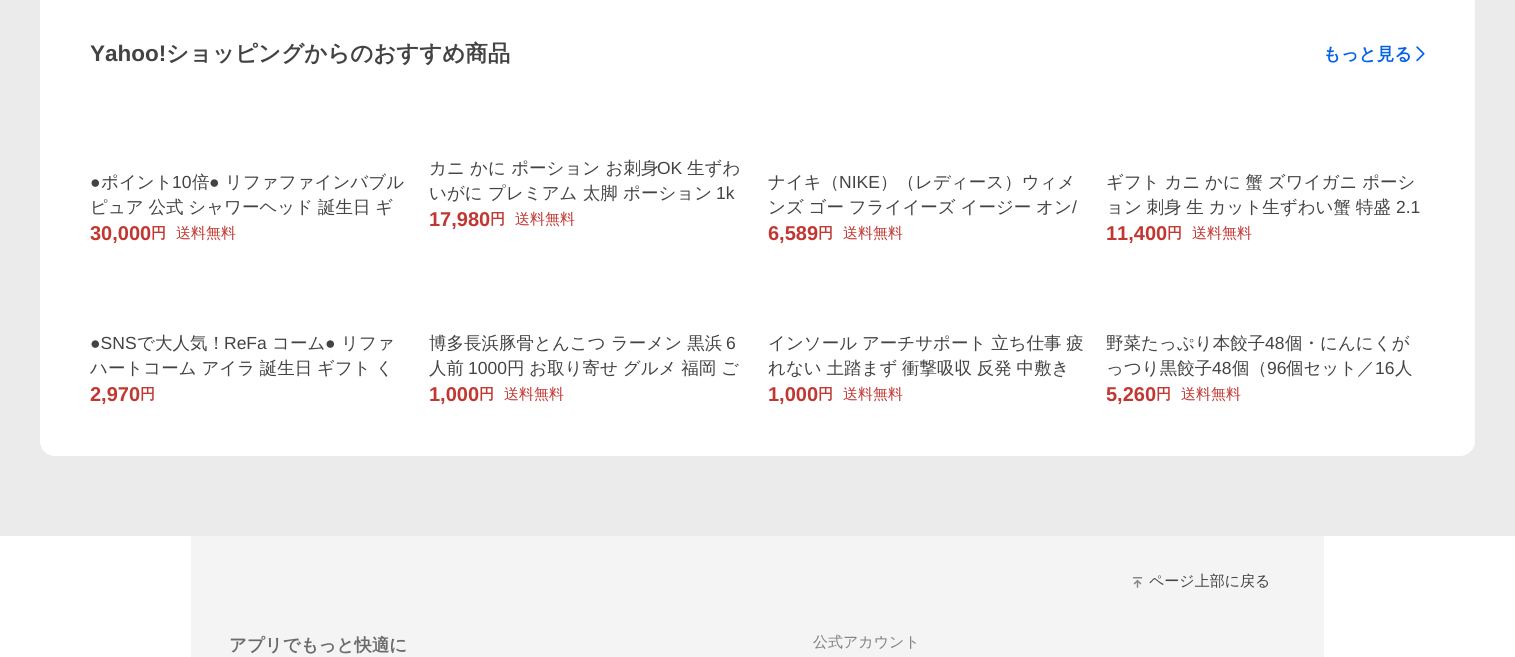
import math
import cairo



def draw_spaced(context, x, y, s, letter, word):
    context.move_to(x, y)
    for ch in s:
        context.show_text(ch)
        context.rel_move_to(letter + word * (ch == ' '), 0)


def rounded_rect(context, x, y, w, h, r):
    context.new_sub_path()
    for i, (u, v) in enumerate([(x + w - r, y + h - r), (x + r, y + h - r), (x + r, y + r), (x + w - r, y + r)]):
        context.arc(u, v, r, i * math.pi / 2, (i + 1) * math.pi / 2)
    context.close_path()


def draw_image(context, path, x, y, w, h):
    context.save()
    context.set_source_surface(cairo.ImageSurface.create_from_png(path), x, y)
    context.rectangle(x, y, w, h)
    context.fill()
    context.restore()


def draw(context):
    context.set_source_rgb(1, 1, 1)
    context.paint()
    context.set_source_rgb(235 / 255, 235 / 255, 235 / 255)
    context.rectangle(0, 0, 1515, 536)
    context.fill()
    context.set_source_rgb(1, 1, 1)
    rounded_rect(context, 40, -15, 1435, 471, 15)
    context.fill()
    draw_image(context, "images/1.png", 1416, 46, 9, 16)
    context.set_source_rgb(244 / 255, 244 / 255, 244 / 255)
    context.rectangle(191, 536, 1133, 121)
    context.fill()
    draw_image(context, "images/2.png", 1132, 577, 11, 11)
    context.select_font_face("Liberation Sans", cairo.FontSlant.NORMAL, cairo.FontWeight.BOLD)
    context.set_font_size(22.5)
    context.set_source_rgb(67 / 255, 67 / 255, 67 / 255)
    context.move_to(90, 61)
    context.show_text("Yahoo!")
    context.select_font_face("WenQuanYi Zen Hei", cairo.FontSlant.NORMAL, cairo.FontWeight.BOLD)
    context.move_to(166, 61)
    context.show_text("ショッピングからのおすすめ商品")
    context.set_font_size(17.5)
    context.set_source_rgb(2 / 255, 96 / 255, 234 / 255)
    context.move_to(1323, 60)
    context.show_text("もっと見る")
    context.select_font_face("Liberation Sans")
    context.set_source_rgb(67 / 255, 67 / 255, 67 / 255)
    context.move_to(90, 188)
    context.show_text("●")
    context.select_font_face("WenQuanYi Zen Hei Medium")
    context.move_to(101, 188)
    context.show_text("ポイント")
    context.select_font_face("Liberation Sans")
    context.move_to(172, 188)
    context.show_text("10")
    context.select_font_face("WenQuanYi Zen Hei Medium")
    context.move_to(192, 188)
    context.show_text("倍")
    context.select_font_face("Liberation Sans")
    context.move_to(209, 188)
    context.show_text("●")
    context.select_font_face("WenQuanYi Zen Hei Medium")
    context.move_to(225, 188)
    context.show_text("リファファインバブル")
    draw_spaced(context, 90, 213, "ピュア 公式 シャワーヘッド 誕生日 ギ", 0, -0.5)
    context.select_font_face("Liberation Sans", cairo.FontSlant.NORMAL, cairo.FontWeight.BOLD)
    context.set_font_size(20)
    context.set_source_rgb(193 / 255, 56 / 255, 50 / 255)
    context.move_to(90, 240)
    context.show_text("30,000")
    context.select_font_face("WenQuanYi Zen Hei", cairo.FontSlant.NORMAL, cairo.FontWeight.BOLD)
    context.set_font_size(15)
    context.move_to(151, 238)
    context.show_text("円")
    context.select_font_face("WenQuanYi Zen Hei Medium")
    context.move_to(176, 238)
    context.show_text("送料無料")
    context.set_font_size(17.5)
    context.set_source_rgb(67 / 255, 67 / 255, 67 / 255)
    context.move_to(429, 174)
    context.show_text("カニ かに ポーション お刺身")
    context.select_font_face("Liberation Sans")
    context.move_to(657, 174)
    context.show_text("OK")
    context.select_font_face("WenQuanYi Zen Hei Medium")
    context.move_to(687, 174)
    context.show_text("生ずわ")
    context.move_to(429, 199)
    context.show_text("いがに プレミアム 太脚 ポーション")
    context.select_font_face("Liberation Sans")
    context.move_to(716, 199)
    context.show_text("1k")
    context.select_font_face("Liberation Sans", cairo.FontSlant.NORMAL, cairo.FontWeight.BOLD)
    context.set_font_size(20)
    context.set_source_rgb(193 / 255, 56 / 255, 50 / 255)
    context.move_to(429, 226)
    context.show_text("17,980")
    context.select_font_face("WenQuanYi Zen Hei", cairo.FontSlant.NORMAL, cairo.FontWeight.BOLD)
    context.set_font_size(15)
    context.move_to(490, 224)
    context.show_text("円")
    context.select_font_face("WenQuanYi Zen Hei Medium")
    context.move_to(515, 224)
    context.show_text("送料無料")
    context.set_font_size(17.5)
    context.set_source_rgb(67 / 255, 67 / 255, 67 / 255)
    context.move_to(768, 188)
    context.show_text("ナイキ（")
    context.select_font_face("Liberation Sans")
    context.move_to(839, 188)
    context.show_text("NIKE")
    context.select_font_face("WenQuanYi Zen Hei Medium")
    context.move_to(880, 188)
    context.show_text("）（レディース）ウィメ")
    draw_spaced(context, 768, 213, "ンズ ゴー フライイーズ イージー オン", 0, -0.5)
    context.select_font_face("Liberation Sans")
    context.move_to(1072, 213)
    context.show_text("/")
    context.select_font_face("Liberation Sans", cairo.FontSlant.NORMAL, cairo.FontWeight.BOLD)
    context.set_font_size(20)
    context.set_source_rgb(193 / 255, 56 / 255, 50 / 255)
    context.move_to(768, 240)
    context.show_text("6,589")
    context.select_font_face("WenQuanYi Zen Hei", cairo.FontSlant.NORMAL, cairo.FontWeight.BOLD)
    context.set_font_size(15)
    context.move_to(818, 238)
    context.show_text("円")
    context.select_font_face("WenQuanYi Zen Hei Medium")
    context.move_to(843, 238)
    context.show_text("送料無料")
    context.set_font_size(17.5)
    context.set_source_rgb(67 / 255, 67 / 255, 67 / 255)
    draw_spaced(context, 1106, 188, "ギフト カニ かに 蟹 ズワイガニ ポーシ", 0, -0.5)
    draw_spaced(context, 1106, 213, "ョン 刺身 生 カット生ずわい蟹 特盛", 0, -0.5)
    context.select_font_face("Liberation Sans")
    context.move_to(1396, 213)
    context.show_text("2.1")
    context.select_font_face("Liberation Sans", cairo.FontSlant.NORMAL, cairo.FontWeight.BOLD)
    context.set_font_size(20)
    context.set_source_rgb(193 / 255, 56 / 255, 50 / 255)
    context.move_to(1106, 240)
    context.show_text("11,400")
    context.select_font_face("WenQuanYi Zen Hei", cairo.FontSlant.NORMAL, cairo.FontWeight.BOLD)
    context.set_font_size(15)
    context.move_to(1167, 238)
    context.show_text("円")
    context.select_font_face("WenQuanYi Zen Hei Medium")
    context.move_to(1192, 238)
    context.show_text("送料無料")
    context.select_font_face("Liberation Sans")
    context.set_font_size(17.5)
    context.set_source_rgb(67 / 255, 67 / 255, 67 / 255)
    context.move_to(90, 349)
    context.show_text("●SNS")
    context.select_font_face("WenQuanYi Zen Hei Medium")
    context.move_to(137, 349)
    context.show_text("で大人気！")
    context.select_font_face("Liberation Sans")
    context.move_to(224, 349)
    context.show_text("ReFa")
    context.select_font_face("WenQuanYi Zen Hei Medium")
    context.move_to(272, 349)
    context.show_text("コーム")
    context.select_font_face("Liberation Sans")
    context.move_to(325, 349)
    context.show_text("●")
    context.select_font_face("WenQuanYi Zen Hei Medium")
    context.move_to(341, 349)
    context.show_text("リファ")
    draw_spaced(context, 90, 374, "ハートコーム アイラ 誕生日 ギフト く", 0, -0.5)
    context.select_font_face("Liberation Sans", cairo.FontSlant.NORMAL, cairo.FontWeight.BOLD)
    context.set_font_size(20)
    context.set_source_rgb(193 / 255, 56 / 255, 50 / 255)
    context.move_to(90, 401)
    context.show_text("2,970")
    context.select_font_face("WenQuanYi Zen Hei", cairo.FontSlant.NORMAL, cairo.FontWeight.BOLD)
    context.set_font_size(15)
    context.move_to(140, 399)
    context.show_text("円")
    context.select_font_face("WenQuanYi Zen Hei Medium")
    context.set_font_size(17.5)
    context.set_source_rgb(67 / 255, 67 / 255, 67 / 255)
    context.move_to(429, 349)
    context.show_text("博多長浜豚骨とんこつ ラーメン 黒浜")
    context.select_font_face("Liberation Sans")
    context.move_to(726, 349)
    context.show_text("6")
    context.select_font_face("WenQuanYi Zen Hei Medium")
    context.move_to(429, 374)
    context.show_text("人前")
    context.select_font_face("Liberation Sans")
    context.move_to(468, 374)
    context.show_text("1000")
    context.select_font_face("WenQuanYi Zen Hei Medium")
    draw_spaced(context, 507, 374, "円 お取り寄せ グルメ 福岡 ご", 0, -0.5)
    context.select_font_face("Liberation Sans", cairo.FontSlant.NORMAL, cairo.FontWeight.BOLD)
    context.set_font_size(20)
    context.set_source_rgb(193 / 255, 56 / 255, 50 / 255)
    context.move_to(429, 401)
    context.show_text("1,000")
    context.select_font_face("WenQuanYi Zen Hei", cairo.FontSlant.NORMAL, cairo.FontWeight.BOLD)
    context.set_font_size(15)
    context.move_to(479, 399)
    context.show_text("円")
    context.select_font_face("WenQuanYi Zen Hei Medium")
    context.move_to(504, 399)
    context.show_text("送料無料")
    context.set_font_size(17.5)
    context.set_source_rgb(67 / 255, 67 / 255, 67 / 255)
    draw_spaced(context, 768, 349, "インソール アーチサポート 立ち仕事 疲", 0, -0.5)
    draw_spaced(context, 768, 374, "れない 土踏まず 衝撃吸収 反発 中敷き", 0, -0.5)
    context.select_font_face("Liberation Sans", cairo.FontSlant.NORMAL, cairo.FontWeight.BOLD)
    context.set_font_size(20)
    context.set_source_rgb(193 / 255, 56 / 255, 50 / 255)
    context.move_to(768, 401)
    context.show_text("1,000")
    context.select_font_face("WenQuanYi Zen Hei", cairo.FontSlant.NORMAL, cairo.FontWeight.BOLD)
    context.set_font_size(15)
    context.move_to(818, 399)
    context.show_text("円")
    context.select_font_face("WenQuanYi Zen Hei Medium")
    context.move_to(843, 399)
    context.show_text("送料無料")
    context.set_font_size(17.5)
    context.set_source_rgb(67 / 255, 67 / 255, 67 / 255)
    context.move_to(1106, 349)
    context.show_text("野菜たっぷり本餃子")
    context.select_font_face("Liberation Sans")
    context.move_to(1265, 349)
    context.show_text("48")
    context.select_font_face("WenQuanYi Zen Hei Medium")
    context.move_to(1285, 349)
    context.show_text("個・にんにくが")
    context.move_to(1106, 374)
    context.show_text("っつり黒餃子")
    context.select_font_face("Liberation Sans")
    context.move_to(1212, 374)
    context.show_text("48")
    context.select_font_face("WenQuanYi Zen Hei Medium")
    context.move_to(1232, 374)
    context.show_text("個（")
    context.select_font_face("Liberation Sans")
    context.move_to(1267, 374)
    context.show_text("96")
    context.select_font_face("WenQuanYi Zen Hei Medium")
    context.move_to(1286, 374)
    context.show_text("個セット／")
    context.select_font_face("Liberation Sans")
    context.move_to(1375, 374)
    context.show_text("16")
    context.select_font_face("WenQuanYi Zen Hei Medium")
    context.move_to(1395, 374)
    context.show_text("人")
    context.select_font_face("Liberation Sans", cairo.FontSlant.NORMAL, cairo.FontWeight.BOLD)
    context.set_font_size(20)
    context.set_source_rgb(193 / 255, 56 / 255, 50 / 255)
    context.move_to(1106, 401)
    context.show_text("5,260")
    context.select_font_face("WenQuanYi Zen Hei", cairo.FontSlant.NORMAL, cairo.FontWeight.BOLD)
    context.set_font_size(15)
    context.move_to(1156, 399)
    context.show_text("円")
    context.select_font_face("WenQuanYi Zen Hei Medium")
    context.move_to(1181, 399)
    context.show_text("送料無料")
    context.set_source_rgb(67 / 255, 67 / 255, 67 / 255)
    context.move_to(1149, 586)
    context.show_text("ページ上部に戻る")
    context.select_font_face("WenQuanYi Zen Hei", cairo.FontSlant.NORMAL, cairo.FontWeight.BOLD)
    context.set_font_size(17.5)
    context.set_source_rgb(107 / 255, 107 / 255, 107 / 255)
    context.move_to(229, 651)
    context.show_text("アプリでもっと快適に")
    context.select_font_face("WenQuanYi Zen Hei Medium")
    context.set_font_size(15)
    context.set_source_rgb(127 / 255, 127 / 255, 127 / 255)
    context.move_to(813, 647)
    context.show_text("公式アカウント")


surface = cairo.ImageSurface(cairo.Format.RGB24, 1515, 657)
context = cairo.Context(surface)
options = cairo.FontOptions()
options.set_hint_metrics(cairo.HintMetrics.OFF)
options.set_hint_style(cairo.HintStyle.NONE)
context.set_font_options(options)
context.set_miter_limit(4)
draw(context)
surface.write_to_png("out.png")
